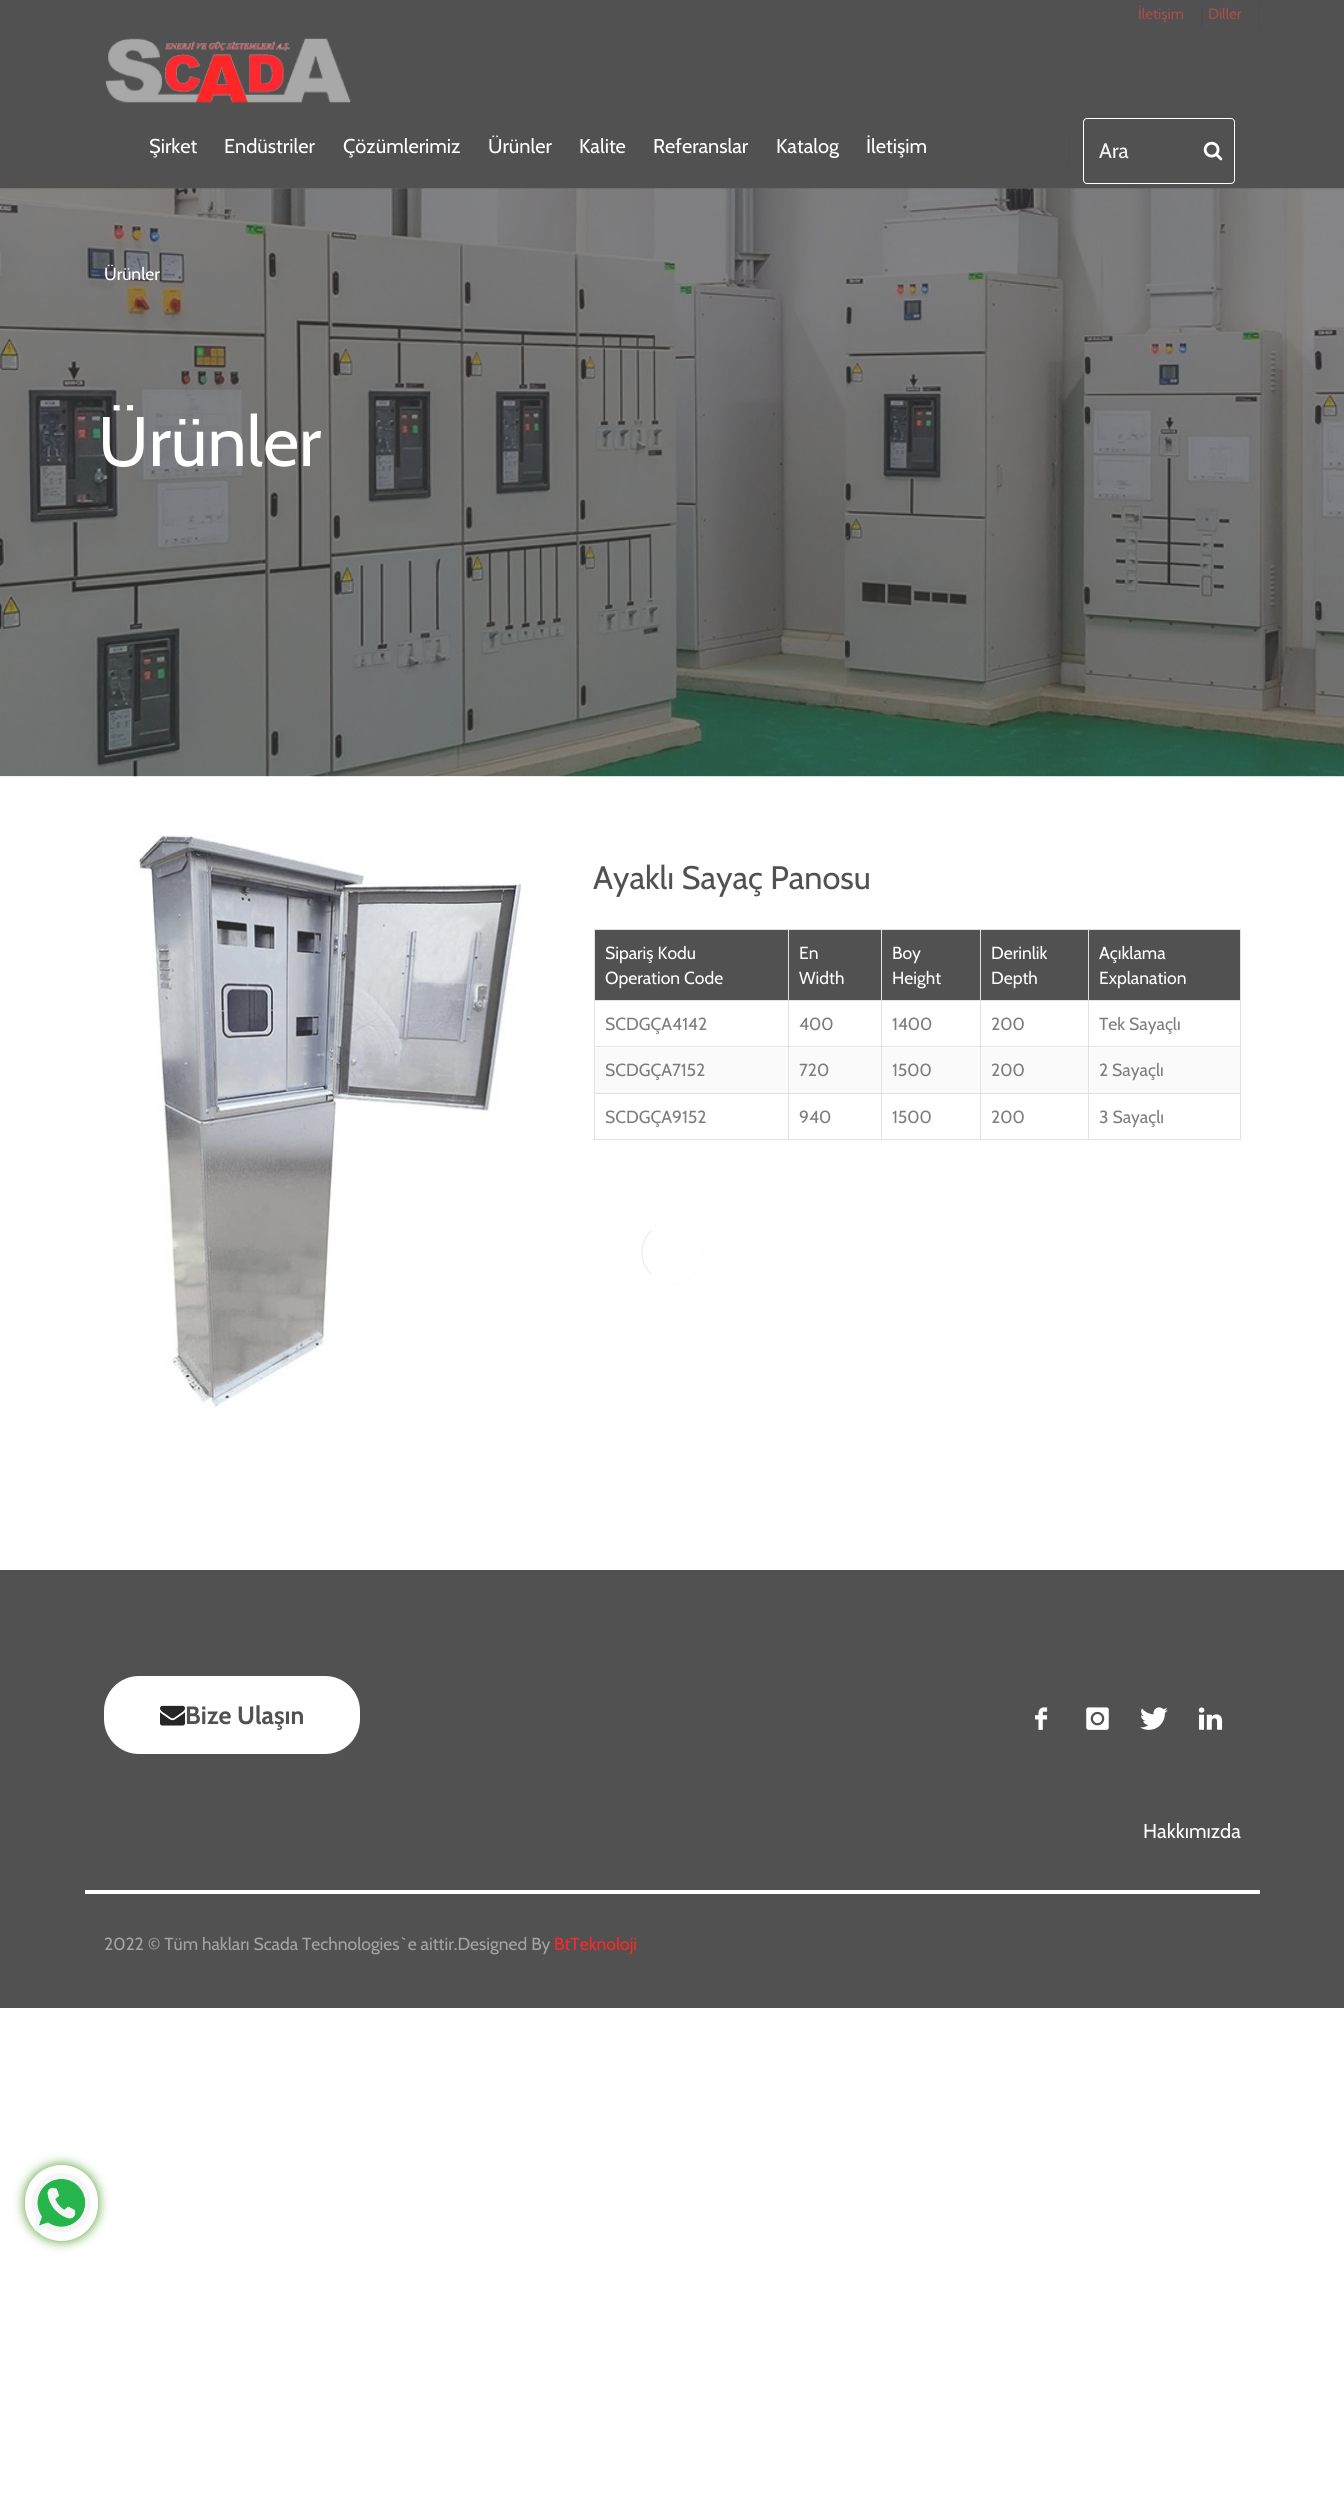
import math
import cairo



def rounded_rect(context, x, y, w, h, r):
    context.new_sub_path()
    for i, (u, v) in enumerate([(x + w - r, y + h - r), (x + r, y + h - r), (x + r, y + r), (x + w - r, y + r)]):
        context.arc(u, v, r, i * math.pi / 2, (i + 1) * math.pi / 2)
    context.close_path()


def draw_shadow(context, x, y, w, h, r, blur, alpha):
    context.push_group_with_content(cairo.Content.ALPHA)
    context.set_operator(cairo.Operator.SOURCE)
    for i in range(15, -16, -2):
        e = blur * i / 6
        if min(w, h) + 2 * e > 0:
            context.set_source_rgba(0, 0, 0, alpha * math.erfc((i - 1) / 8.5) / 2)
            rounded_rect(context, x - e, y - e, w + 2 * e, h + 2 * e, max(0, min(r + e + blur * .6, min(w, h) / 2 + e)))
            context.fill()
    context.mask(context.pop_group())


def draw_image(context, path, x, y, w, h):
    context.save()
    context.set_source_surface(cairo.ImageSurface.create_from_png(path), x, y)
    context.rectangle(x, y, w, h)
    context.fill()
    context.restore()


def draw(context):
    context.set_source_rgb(1, 1, 1)
    context.paint()
    context.set_source_rgb(81 / 255, 81 / 255, 81 / 255)
    context.rectangle(0, 0, 1344, 188)
    context.fill()
    context.set_source_rgb(79 / 255, 79 / 255, 79 / 255)
    context.rectangle(0, 188, 1344, 1)
    context.fill()
    context.set_source_rgb(77 / 255, 77 / 255, 77 / 255)
    context.new_path()
    context.move_to(1202.5, 2.5)
    context.line_to(1202.5, 31)
    context.line_to(1201, 27.5)
    context.line_to(1201, 2.5)
    context.close_path()
    context.fill()
    context.new_path()
    context.move_to(1204, 15)
    context.line_to(1204, 19)
    context.line_to(1202.5, 15)
    context.close_path()
    context.move_to(1260, 2.5)
    context.line_to(1260, 31)
    context.line_to(1259, 27.5)
    context.line_to(1259, 2.5)
    context.close_path()
    context.fill()
    draw_image(context, "images/1.png", 105, 38, 246, 65)
    context.rectangle(1068, 134, 1, 30)
    context.fill()
    rounded_rect(context, 1083.5, 118.5, 151, 65, 3.5)
    context.set_source_rgb(1, 1, 1)
    context.set_line_width(1)
    context.stroke()
    draw_image(context, "images/2.png", 1203, 141, 20, 20)
    draw_image(context, "images/3.png", 0, 188, 1344, 589)
    draw_image(context, "images/4.png", 135, 834, 386, 574)
    context.set_source_rgb(226 / 255, 226 / 255, 226 / 255)
    context.rectangle(594, 929, 647, 1)
    context.fill()
    context.rectangle(1240, 929, 1, 211)
    context.fill()
    context.rectangle(594, 1139, 647, 1)
    context.fill()
    context.rectangle(594, 929, 1, 211)
    context.fill()
    context.set_source_rgb(81 / 255, 81 / 255, 81 / 255)
    context.rectangle(595, 930, 645, 70)
    context.fill()
    context.set_source_rgb(226 / 255, 226 / 255, 226 / 255)
    context.rectangle(1088, 1000, 153, 1)
    context.fill()
    context.rectangle(1088, 1046, 153, 1)
    context.fill()
    context.set_source_rgb(250 / 255, 250 / 255, 250 / 255)
    context.rectangle(595, 1048, 645, 45)
    context.fill()
    context.set_source_rgb(226 / 255, 226 / 255, 226 / 255)
    context.rectangle(1088, 1093, 153, 1)
    context.fill()
    context.rectangle(1088, 1093, 1, 47)
    context.fill()
    context.rectangle(980, 1093, 109, 1)
    context.fill()
    context.rectangle(1088, 1046, 1, 48)
    context.fill()
    context.rectangle(980, 1046, 109, 1)
    context.fill()
    context.rectangle(1088, 1000, 1, 48)
    context.fill()
    context.rectangle(980, 1000, 109, 1)
    context.fill()
    context.rectangle(980, 1093, 1, 47)
    context.fill()
    context.rectangle(881, 1093, 100, 1)
    context.fill()
    context.rectangle(980, 1046, 1, 48)
    context.fill()
    context.rectangle(881, 1046, 100, 1)
    context.fill()
    context.rectangle(980, 1000, 1, 48)
    context.fill()
    context.rectangle(881, 1000, 100, 1)
    context.fill()
    context.rectangle(881, 1093, 1, 47)
    context.fill()
    context.rectangle(788, 1093, 95, 1)
    context.fill()
    context.rectangle(881, 1046, 1, 48)
    context.fill()
    context.rectangle(788, 1046, 95, 1)
    context.fill()
    context.rectangle(881, 1000, 1, 48)
    context.fill()
    context.rectangle(788, 1000, 95, 1)
    context.fill()
    context.rectangle(788, 1093, 1, 47)
    context.fill()
    context.rectangle(594, 1093, 195, 1)
    context.fill()
    context.rectangle(788, 1046, 1, 48)
    context.fill()
    context.rectangle(594, 1046, 195, 1)
    context.fill()
    context.rectangle(788, 1000, 1, 48)
    context.fill()
    context.rectangle(594, 1000, 195, 1)
    context.fill()
    context.rectangle(788, 929, 1, 72)
    context.fill()
    context.rectangle(881, 929, 1, 72)
    context.fill()
    context.rectangle(980, 929, 1, 72)
    context.fill()
    context.rectangle(1088, 929, 1, 72)
    context.fill()
    context.new_path()
    context.move_to(651, 1231)
    context.curve_to(656.5, 1225, 664.5, 1222, 672.5, 1222)
    context.curve_to(709, 1222, 714.5, 1275.5, 678.5, 1282.5)
    context.curve_to(668.5, 1284.5, 658, 1281.5, 651, 1274)
    context.set_source_rgb(252 / 255, 252 / 255, 252 / 255)
    context.set_line_width(1.2)
    context.stroke()
    context.new_path()
    context.move_to(651, 1274)
    context.curve_to(639, 1262.5, 639, 1242.5, 651, 1231)
    context.set_source_rgb(236 / 255, 236 / 255, 236 / 255)
    context.stroke()
    context.set_source_rgb(81 / 255, 81 / 255, 81 / 255)
    context.rectangle(0, 1570, 1344, 438)
    context.fill()
    context.set_source_rgb(1, 1, 1)
    rounded_rect(context, 104, 1676, 256, 78, 35)
    context.fill()
    draw_image(context, "images/5.png", 160, 1705, 25, 21)
    draw_image(context, "images/6.png", 1035, 1707, 13, 23)
    draw_image(context, "images/7.png", 1086, 1707, 23, 23)
    draw_image(context, "images/8.png", 1140, 1707, 28, 23)
    draw_image(context, "images/9.png", 1198, 1707, 25, 23)
    context.rectangle(85, 1890, 1175, 4)
    context.fill()
    context.set_source_rgb(81 / 255, 156 / 255, 43 / 255)
    draw_shadow(context, 25, 2165, 73, 76, 36.5, 5.5, 1)
    context.set_source_rgb(1, 1, 1)
    rounded_rect(context, 25, 2165, 73, 76, 36.5)
    context.fill()
    draw_image(context, "images/10.png", 31, 2173, 60, 60)
    context.select_font_face("Cabin")
    context.set_font_size(15)
    context.set_source_rgb(169 / 255, 76 / 255, 76 / 255)
    context.move_to(1138, 19)
    context.show_text("İletişim")
    context.move_to(1208, 19)
    context.show_text("Diller")
    context.set_font_size(20)
    context.set_source_rgb(1, 1, 1)
    context.move_to(149, 153)
    context.show_text("Şirket")
    context.move_to(224, 153)
    context.show_text("Endüstriler")
    context.move_to(343, 153)
    context.show_text("Çözümlerimiz")
    context.move_to(488, 153)
    context.show_text("Ürünler")
    context.move_to(579, 153)
    context.show_text("Kalite")
    context.move_to(653, 153)
    context.show_text("Referanslar")
    context.move_to(776, 153)
    context.show_text("Katalog")
    context.move_to(866, 153)
    context.show_text("İletişim")
    context.set_font_size(21)
    context.set_source_rgb(243 / 255, 243 / 255, 243 / 255)
    context.move_to(1099, 158)
    context.show_text("Ara")
    context.set_font_size(17.5)
    context.set_source_rgb(1, 1, 1)
    context.move_to(104, 280)
    context.show_text("Ürünler")
    context.set_font_size(70)
    context.move_to(98, 466)
    context.show_text("Ürünler")
    context.set_font_size(32.5)
    context.set_source_rgb(81 / 255, 81 / 255, 81 / 255)
    context.move_to(593, 889)
    context.show_text("Ayaklı Sayaç Panosu")
    context.set_font_size(17.5)
    context.set_source_rgb(1, 1, 1)
    context.move_to(605, 959)
    context.show_text("Sipariş Kodu")
    context.move_to(605, 984)
    context.show_text("Operation Code")
    context.move_to(799, 959)
    context.show_text("En")
    context.move_to(799, 984)
    context.show_text("Width")
    context.move_to(892, 959)
    context.show_text("Boy")
    context.move_to(892, 984)
    context.show_text("Height")
    context.move_to(991, 959)
    context.show_text("Derinlik")
    context.move_to(991, 984)
    context.show_text("Depth")
    context.move_to(1099, 959)
    context.show_text("Açıklama")
    context.move_to(1099, 984)
    context.show_text("Explanation")
    context.set_source_rgb(125 / 255, 125 / 255, 125 / 255)
    context.move_to(605, 1030)
    context.show_text("SCDGÇA4142")
    context.move_to(799, 1030)
    context.show_text("400")
    context.move_to(892, 1030)
    context.show_text("1400")
    context.move_to(991, 1030)
    context.show_text("200")
    context.move_to(1099, 1030)
    context.show_text("Tek Sayaçlı")
    context.move_to(605, 1076)
    context.show_text("SCDGÇA7152")
    context.move_to(799, 1076)
    context.show_text("720")
    context.move_to(892, 1076)
    context.show_text("1500")
    context.move_to(991, 1076)
    context.show_text("200")
    context.move_to(1099, 1076)
    context.show_text("2 Sayaçlı")
    context.move_to(605, 1123)
    context.show_text("SCDGÇA9152")
    context.move_to(799, 1123)
    context.show_text("940")
    context.move_to(892, 1123)
    context.show_text("1500")
    context.move_to(991, 1123)
    context.show_text("200")
    context.move_to(1099, 1123)
    context.show_text("3 Sayaçlı")
    context.select_font_face("Cabin", cairo.FontSlant.NORMAL, cairo.FontWeight.BOLD)
    context.set_font_size(25)
    context.set_source_rgb(81 / 255, 81 / 255, 81 / 255)
    context.move_to(185, 1724)
    context.show_text("Bize Ulaşın")
    context.select_font_face("Cabin")
    context.set_font_size(20)
    context.set_source_rgb(1, 1, 1)
    context.move_to(1143, 1838)
    context.show_text("Hakkımızda")
    context.set_font_size(17.5)
    context.set_source_rgb(164 / 255, 164 / 255, 164 / 255)
    context.move_to(104, 1950)
    context.show_text("2022 © Tüm hakları Scada Technologies`e aittir.Designed By")
    context.set_source_rgb(1, 38 / 255, 38 / 255)
    context.move_to(554, 1950)
    context.show_text("BtTeknoloji")


surface = cairo.ImageSurface(cairo.Format.RGB24, 1344, 2503)
context = cairo.Context(surface)
options = cairo.FontOptions()
options.set_hint_metrics(cairo.HintMetrics.OFF)
options.set_hint_style(cairo.HintStyle.NONE)
context.set_font_options(options)
context.set_miter_limit(4)
draw(context)
surface.write_to_png("out.png")
